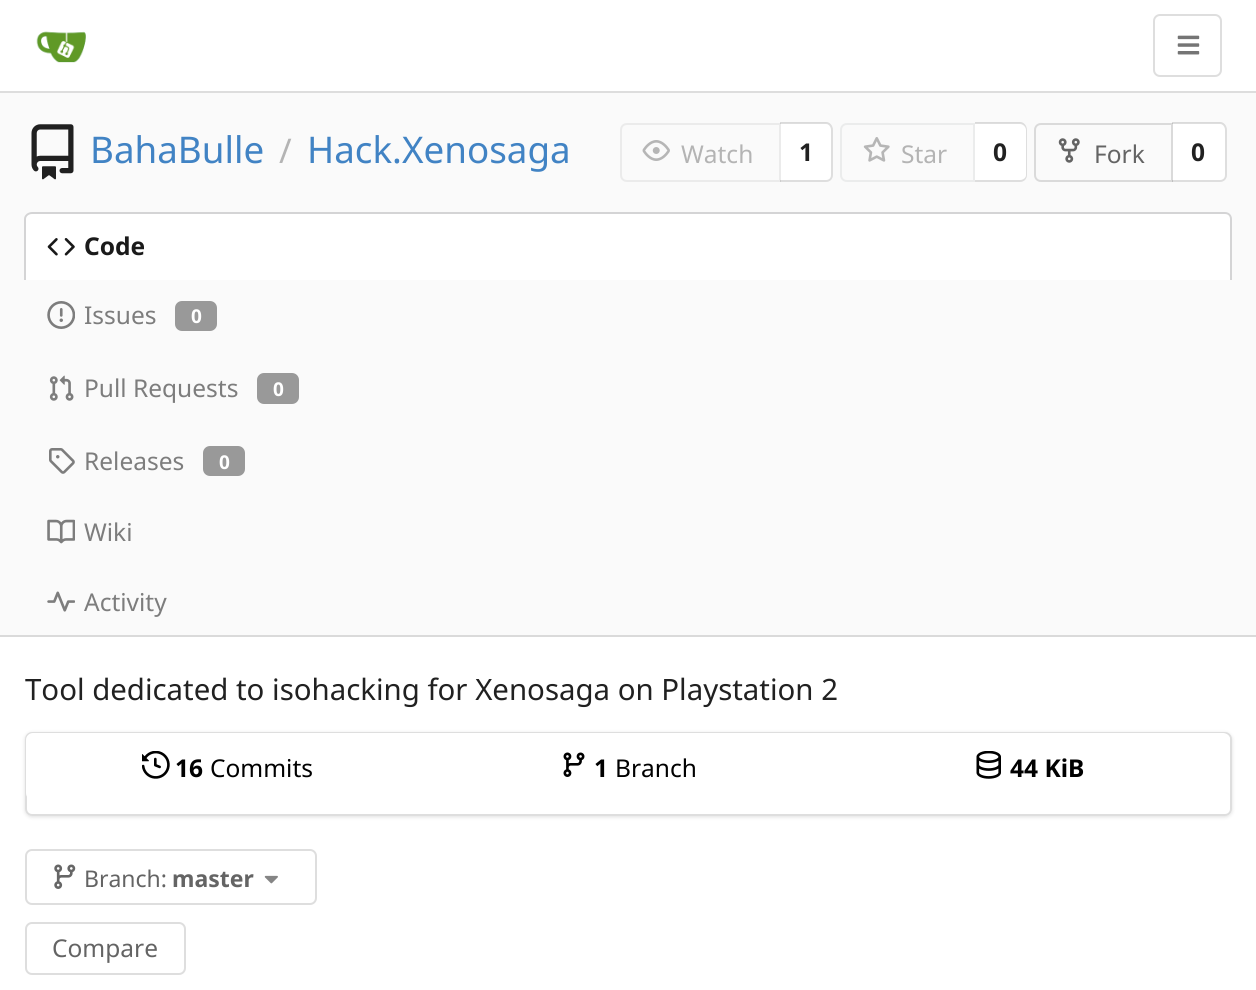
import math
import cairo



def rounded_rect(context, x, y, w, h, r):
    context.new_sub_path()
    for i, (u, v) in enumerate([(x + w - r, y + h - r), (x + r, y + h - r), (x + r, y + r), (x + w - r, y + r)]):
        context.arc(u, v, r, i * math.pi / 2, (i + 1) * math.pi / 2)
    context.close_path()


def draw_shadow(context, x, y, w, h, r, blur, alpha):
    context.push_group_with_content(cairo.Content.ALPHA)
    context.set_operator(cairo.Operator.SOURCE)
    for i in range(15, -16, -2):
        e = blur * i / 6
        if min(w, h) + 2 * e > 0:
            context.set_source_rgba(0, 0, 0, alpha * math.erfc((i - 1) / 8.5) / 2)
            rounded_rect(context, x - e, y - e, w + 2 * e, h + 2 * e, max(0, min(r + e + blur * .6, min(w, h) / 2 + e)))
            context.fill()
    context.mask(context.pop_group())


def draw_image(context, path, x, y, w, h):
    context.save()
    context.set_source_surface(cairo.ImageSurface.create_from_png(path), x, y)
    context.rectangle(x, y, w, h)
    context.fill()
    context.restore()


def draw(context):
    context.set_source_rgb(1, 1, 1)
    context.paint()
    context.set_source_rgb(221 / 255, 221 / 255, 221 / 255)
    context.rectangle(0, 91, 1256, 2)
    context.fill()
    draw_image(context, "images/1.png", 36, 31, 50, 32)
    rounded_rect(context, 1154, 15, 67, 61, 6)
    context.set_source_rgb(222 / 255, 222 / 255, 222 / 255)
    context.stroke()
    draw_image(context, "images/2.png", 1177, 35, 23, 20)
    context.set_source_rgb(250 / 255, 250 / 255, 250 / 255)
    context.rectangle(0, 93, 1256, 542)
    context.fill()
    draw_image(context, "images/3.png", 31, 124, 43, 56)
    context.set_source_rgb(1, 1, 1)
    context.new_path()
    context.move_to(781, 123)
    context.line_to(826, 123)
    context.curve_to(830, 123, 833, 126, 833, 130)
    context.line_to(833, 175)
    context.curve_to(833, 179, 830, 182, 826, 182)
    context.line_to(781, 182)
    context.close_path()
    context.fill()
    context.set_source_rgba(34 / 255, 36 / 255, 38 / 255, 0.15)
    context.set_fill_rule(cairo.FillRule.EVEN_ODD)
    context.new_path()
    context.move_to(780, 122)
    context.line_to(826, 122)
    context.curve_to(830, 122, 833, 126, 833, 130)
    context.line_to(833, 175)
    context.curve_to(833, 179, 830, 182, 826, 182)
    context.line_to(780, 182)
    context.close_path()
    context.move_to(780, 124)
    context.line_to(826, 124)
    context.curve_to(829, 124, 831, 127, 831, 130)
    context.line_to(831, 175)
    context.curve_to(831, 178, 829, 180, 826, 180)
    context.line_to(780, 180)
    context.close_path()
    context.fill()
    context.new_path()
    context.move_to(627, 124)
    context.line_to(780, 124)
    context.line_to(780, 181)
    context.line_to(627, 181)
    context.curve_to(623.5, 181, 621, 178.5, 621, 175)
    context.line_to(621, 130)
    context.curve_to(621, 126.5, 623.5, 124, 627, 124)
    context.close_path()
    context.set_source_rgba(34 / 255, 36 / 255, 38 / 255, 0.07)
    context.stroke()
    draw_image(context, "images/4.png", 642, 140, 28, 21)
    context.new_path()
    context.move_to(847, 124)
    context.line_to(974, 124)
    context.line_to(974, 181)
    context.line_to(847, 181)
    context.curve_to(843.5, 181, 841, 178.5, 841, 175)
    context.line_to(841, 130)
    context.curve_to(841, 126.5, 843.5, 124, 847, 124)
    context.close_path()
    context.set_source_rgb(235 / 255, 236 / 255, 236 / 255)
    context.stroke()
    draw_image(context, "images/5.png", 863, 137, 27, 25)
    context.set_source_rgb(1, 1, 1)
    context.new_path()
    context.move_to(975, 123)
    context.line_to(1020, 123)
    context.curve_to(1024, 123, 1027, 126, 1027, 130)
    context.line_to(1027, 175)
    context.curve_to(1027, 179, 1024, 182, 1020, 182)
    context.line_to(975, 182)
    context.close_path()
    context.fill()
    context.set_source_rgba(34 / 255, 36 / 255, 38 / 255, 0.15)
    context.new_path()
    context.move_to(975, 122)
    context.line_to(1020, 122)
    context.curve_to(1024, 122, 1027, 126, 1027, 130)
    context.line_to(1027, 175)
    context.curve_to(1027, 179, 1024, 182, 1020, 182)
    context.line_to(975, 182)
    context.close_path()
    context.move_to(975, 124)
    context.line_to(1020, 124)
    context.curve_to(1023, 124, 1026, 127, 1026, 130)
    context.line_to(1026, 175)
    context.curve_to(1026, 178, 1023, 180, 1020, 180)
    context.line_to(975, 180)
    context.close_path()
    context.fill()
    context.new_path()
    context.move_to(1041, 124)
    context.line_to(1172, 124)
    context.line_to(1172, 181)
    context.line_to(1041, 181)
    context.curve_to(1037.5, 181, 1035, 178.5, 1035, 175)
    context.line_to(1035, 130)
    context.curve_to(1035, 126.5, 1037.5, 124, 1041, 124)
    context.close_path()
    context.set_source_rgb(218 / 255, 218 / 255, 218 / 255)
    context.stroke()
    draw_image(context, "images/6.png", 1058, 138, 22, 25)
    context.set_source_rgb(1, 1, 1)
    context.new_path()
    context.move_to(1173, 123)
    context.line_to(1220, 123)
    context.curve_to(1224, 123, 1227, 126, 1227, 130)
    context.line_to(1227, 175)
    context.curve_to(1227, 179, 1224, 182, 1220, 182)
    context.line_to(1173, 182)
    context.close_path()
    context.fill()
    context.set_source_rgba(34 / 255, 36 / 255, 38 / 255, 0.15)
    context.new_path()
    context.move_to(1172, 122)
    context.line_to(1220, 122)
    context.curve_to(1224, 122, 1227, 126, 1227, 130)
    context.line_to(1227, 175)
    context.curve_to(1227, 179, 1224, 182, 1220, 182)
    context.line_to(1172, 182)
    context.close_path()
    context.move_to(1172, 124)
    context.line_to(1220, 124)
    context.curve_to(1223, 124, 1225, 127, 1225, 130)
    context.line_to(1225, 175)
    context.curve_to(1225, 178, 1223, 180, 1220, 180)
    context.line_to(1172, 180)
    context.close_path()
    context.fill()
    context.set_source_rgb(1, 1, 1)
    context.new_path()
    context.move_to(32, 212)
    context.line_to(1225, 212)
    context.curve_to(1229, 212, 1232, 215, 1232, 219)
    context.line_to(1232, 280)
    context.line_to(25, 280)
    context.line_to(25, 219)
    context.curve_to(25, 215, 28, 212, 32, 212)
    context.close_path()
    context.fill()
    context.set_source_rgb(212 / 255, 212 / 255, 213 / 255)
    context.new_path()
    context.move_to(32, 212)
    context.line_to(1225, 212)
    context.curve_to(1229, 212, 1232, 215, 1232, 219)
    context.line_to(1232, 280)
    context.line_to(24, 280)
    context.line_to(24, 219)
    context.curve_to(24, 215, 28, 212, 32, 212)
    context.close_path()
    context.move_to(32, 214)
    context.line_to(1225, 214)
    context.curve_to(1228, 214, 1230, 216, 1230, 219)
    context.line_to(1230, 280)
    context.line_to(26, 280)
    context.line_to(26, 219)
    context.curve_to(26, 216, 29, 214, 32, 214)
    context.close_path()
    context.fill()
    draw_image(context, "images/7.png", 47, 238, 28, 18)
    draw_image(context, "images/8.png", 47, 301, 28, 28)
    context.set_source_rgb(153 / 255, 153 / 255, 153 / 255)
    rounded_rect(context, 175, 301, 42, 30, 7)
    context.fill()
    draw_image(context, "images/9.png", 49, 375, 25, 26)
    rounded_rect(context, 257, 373, 42, 31, 7)
    context.fill()
    draw_image(context, "images/10.png", 49, 448, 26, 26)
    rounded_rect(context, 203, 446, 42, 30, 7)
    context.fill()
    draw_image(context, "images/11.png", 47, 519, 28, 25)
    draw_image(context, "images/12.png", 47, 591, 28, 21)
    context.set_source_rgb(218 / 255, 218 / 255, 218 / 255)
    context.rectangle(0, 635, 1256, 2)
    context.fill()
    context.save()
    context.new_path()
    context.move_to(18, 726)
    context.line_to(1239, 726)
    context.line_to(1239, 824)
    context.line_to(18, 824)
    context.close_path()
    context.move_to(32, 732)
    context.line_to(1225, 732)
    context.curve_to(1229, 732, 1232, 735, 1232, 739)
    context.line_to(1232, 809)
    context.curve_to(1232, 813, 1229, 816, 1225, 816)
    context.line_to(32, 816)
    context.curve_to(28, 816, 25, 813, 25, 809)
    context.line_to(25, 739)
    context.curve_to(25, 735, 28, 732, 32, 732)
    context.close_path()
    context.clip()
    context.set_source_rgb(34 / 255, 36 / 255, 38 / 255)
    draw_shadow(context, 25, 733, 1207, 84, 7, 2, 0.15)
    context.restore()
    rounded_rect(context, 26, 733, 1205, 82, 6)
    context.set_source_rgba(34 / 255, 36 / 255, 38 / 255, 0.15)
    context.stroke()
    context.set_source_rgb(1, 1, 1)
    rounded_rect(context, 26, 733, 1204, 67, 7)
    context.fill()
    draw_image(context, "images/13.png", 142, 751, 28, 28)
    draw_image(context, "images/14.png", 563, 752, 22, 25)
    draw_image(context, "images/15.png", 976, 751, 25, 28)
    rounded_rect(context, 26, 850, 290, 54, 6)
    context.set_source_rgb(222 / 255, 222 / 255, 222 / 255)
    context.stroke()
    draw_image(context, "images/16.png", 54, 864, 22, 25)
    draw_image(context, "images/17.png", 264, 875, 14, 9)
    rounded_rect(context, 26, 923, 159, 51, 6)
    context.stroke()
    context.select_font_face("Noto Sans")
    context.set_font_size(36.75)
    context.set_source_rgb(65 / 255, 131 / 255, 196 / 255)
    context.move_to(90, 163)
    context.show_text("BahaBulle")
    context.set_font_size(34)
    context.set_source_rgb(180 / 255, 180 / 255, 180 / 255)
    context.move_to(279, 163)
    context.show_text("/")
    context.set_font_size(36.75)
    context.set_source_rgb(65 / 255, 131 / 255, 196 / 255)
    context.move_to(307, 163)
    context.show_text("Hack.Xenosaga")
    context.set_font_size(24.5)
    context.set_source_rgb(180 / 255, 180 / 255, 180 / 255)
    context.move_to(681, 163)
    context.show_text("Watch")
    context.select_font_face("Noto Sans", cairo.FontSlant.NORMAL, cairo.FontWeight.BOLD)
    context.set_source_rgb(33 / 255, 33 / 255, 33 / 255)
    context.move_to(799, 161)
    context.show_text("1")
    context.select_font_face("Noto Sans")
    context.set_source_rgb(180 / 255, 180 / 255, 180 / 255)
    context.move_to(901, 163)
    context.show_text("Star")
    context.select_font_face("Noto Sans", cairo.FontSlant.NORMAL, cairo.FontWeight.BOLD)
    context.set_source_rgb(33 / 255, 33 / 255, 33 / 255)
    context.move_to(993, 161)
    context.show_text("0")
    context.select_font_face("Noto Sans")
    context.set_source_rgb(100 / 255, 100 / 255, 100 / 255)
    context.move_to(1094, 163)
    context.show_text("Fork")
    context.select_font_face("Noto Sans", cairo.FontSlant.NORMAL, cairo.FontWeight.BOLD)
    context.set_source_rgb(33 / 255, 33 / 255, 33 / 255)
    context.move_to(1191, 161)
    context.show_text("0")
    context.set_source_rgb(26 / 255, 26 / 255, 26 / 255)
    context.move_to(84, 255)
    context.show_text("Code")
    context.select_font_face("Noto Sans")
    context.set_source_rgb(125 / 255, 125 / 255, 125 / 255)
    context.move_to(84, 324)
    context.show_text("Issues")
    context.select_font_face("Noto Sans", cairo.FontSlant.NORMAL, cairo.FontWeight.BOLD)
    context.set_font_size(19)
    context.set_source_rgb(1, 1, 1)
    context.move_to(191, 323)
    context.show_text("0")
    context.select_font_face("Noto Sans")
    context.set_font_size(24.5)
    context.set_source_rgb(125 / 255, 125 / 255, 125 / 255)
    context.move_to(84, 397)
    context.show_text("Pull Requests")
    context.select_font_face("Noto Sans", cairo.FontSlant.NORMAL, cairo.FontWeight.BOLD)
    context.set_font_size(19)
    context.set_source_rgb(1, 1, 1)
    context.move_to(273, 396)
    context.show_text("0")
    context.select_font_face("Noto Sans")
    context.set_font_size(24.5)
    context.set_source_rgb(125 / 255, 125 / 255, 125 / 255)
    context.move_to(84, 470)
    context.show_text("Releases")
    context.select_font_face("Noto Sans", cairo.FontSlant.NORMAL, cairo.FontWeight.BOLD)
    context.set_font_size(19)
    context.set_source_rgb(1, 1, 1)
    context.move_to(219, 469)
    context.show_text("0")
    context.select_font_face("Noto Sans")
    context.set_font_size(24.5)
    context.set_source_rgb(125 / 255, 125 / 255, 125 / 255)
    context.move_to(84, 541)
    context.show_text("Wiki")
    context.move_to(84, 611)
    context.show_text("Activity")
    context.set_font_size(29.4)
    context.set_source_rgb(33 / 255, 33 / 255, 33 / 255)
    context.move_to(25, 700)
    context.show_text("Tool dedicated to isohacking for Xenosaga on Playstation 2")
    context.select_font_face("Noto Sans", cairo.FontSlant.NORMAL, cairo.FontWeight.BOLD)
    context.set_font_size(24.5)
    context.set_source_rgb(0, 0, 0)
    context.move_to(175, 777)
    context.show_text("16")
    context.select_font_face("Noto Sans")
    context.move_to(210, 777)
    context.show_text("Commits")
    context.select_font_face("Noto Sans", cairo.FontSlant.NORMAL, cairo.FontWeight.BOLD)
    context.move_to(594, 777)
    context.show_text("1")
    context.select_font_face("Noto Sans")
    context.move_to(615, 777)
    context.show_text("Branch")
    context.select_font_face("Noto Sans", cairo.FontSlant.NORMAL, cairo.FontWeight.BOLD)
    context.move_to(1010, 777)
    context.show_text("44 KiB")
    context.select_font_face("Noto Sans")
    context.set_font_size(23)
    context.set_source_rgb(100 / 255, 100 / 255, 100 / 255)
    context.move_to(84, 887)
    context.show_text("Branch:")
    context.select_font_face("Noto Sans", cairo.FontSlant.NORMAL, cairo.FontWeight.BOLD)
    context.move_to(172, 887)
    context.show_text("master")
    context.select_font_face("Noto Sans")
    context.set_font_size(24.5)
    context.move_to(52, 957)
    context.show_text("Compare")


surface = cairo.ImageSurface(cairo.Format.RGB24, 1256, 990)
context = cairo.Context(surface)
options = cairo.FontOptions()
options.set_hint_metrics(cairo.HintMetrics.OFF)
options.set_hint_style(cairo.HintStyle.NONE)
context.set_font_options(options)
context.set_miter_limit(4)
draw(context)
surface.write_to_png("out.png")
